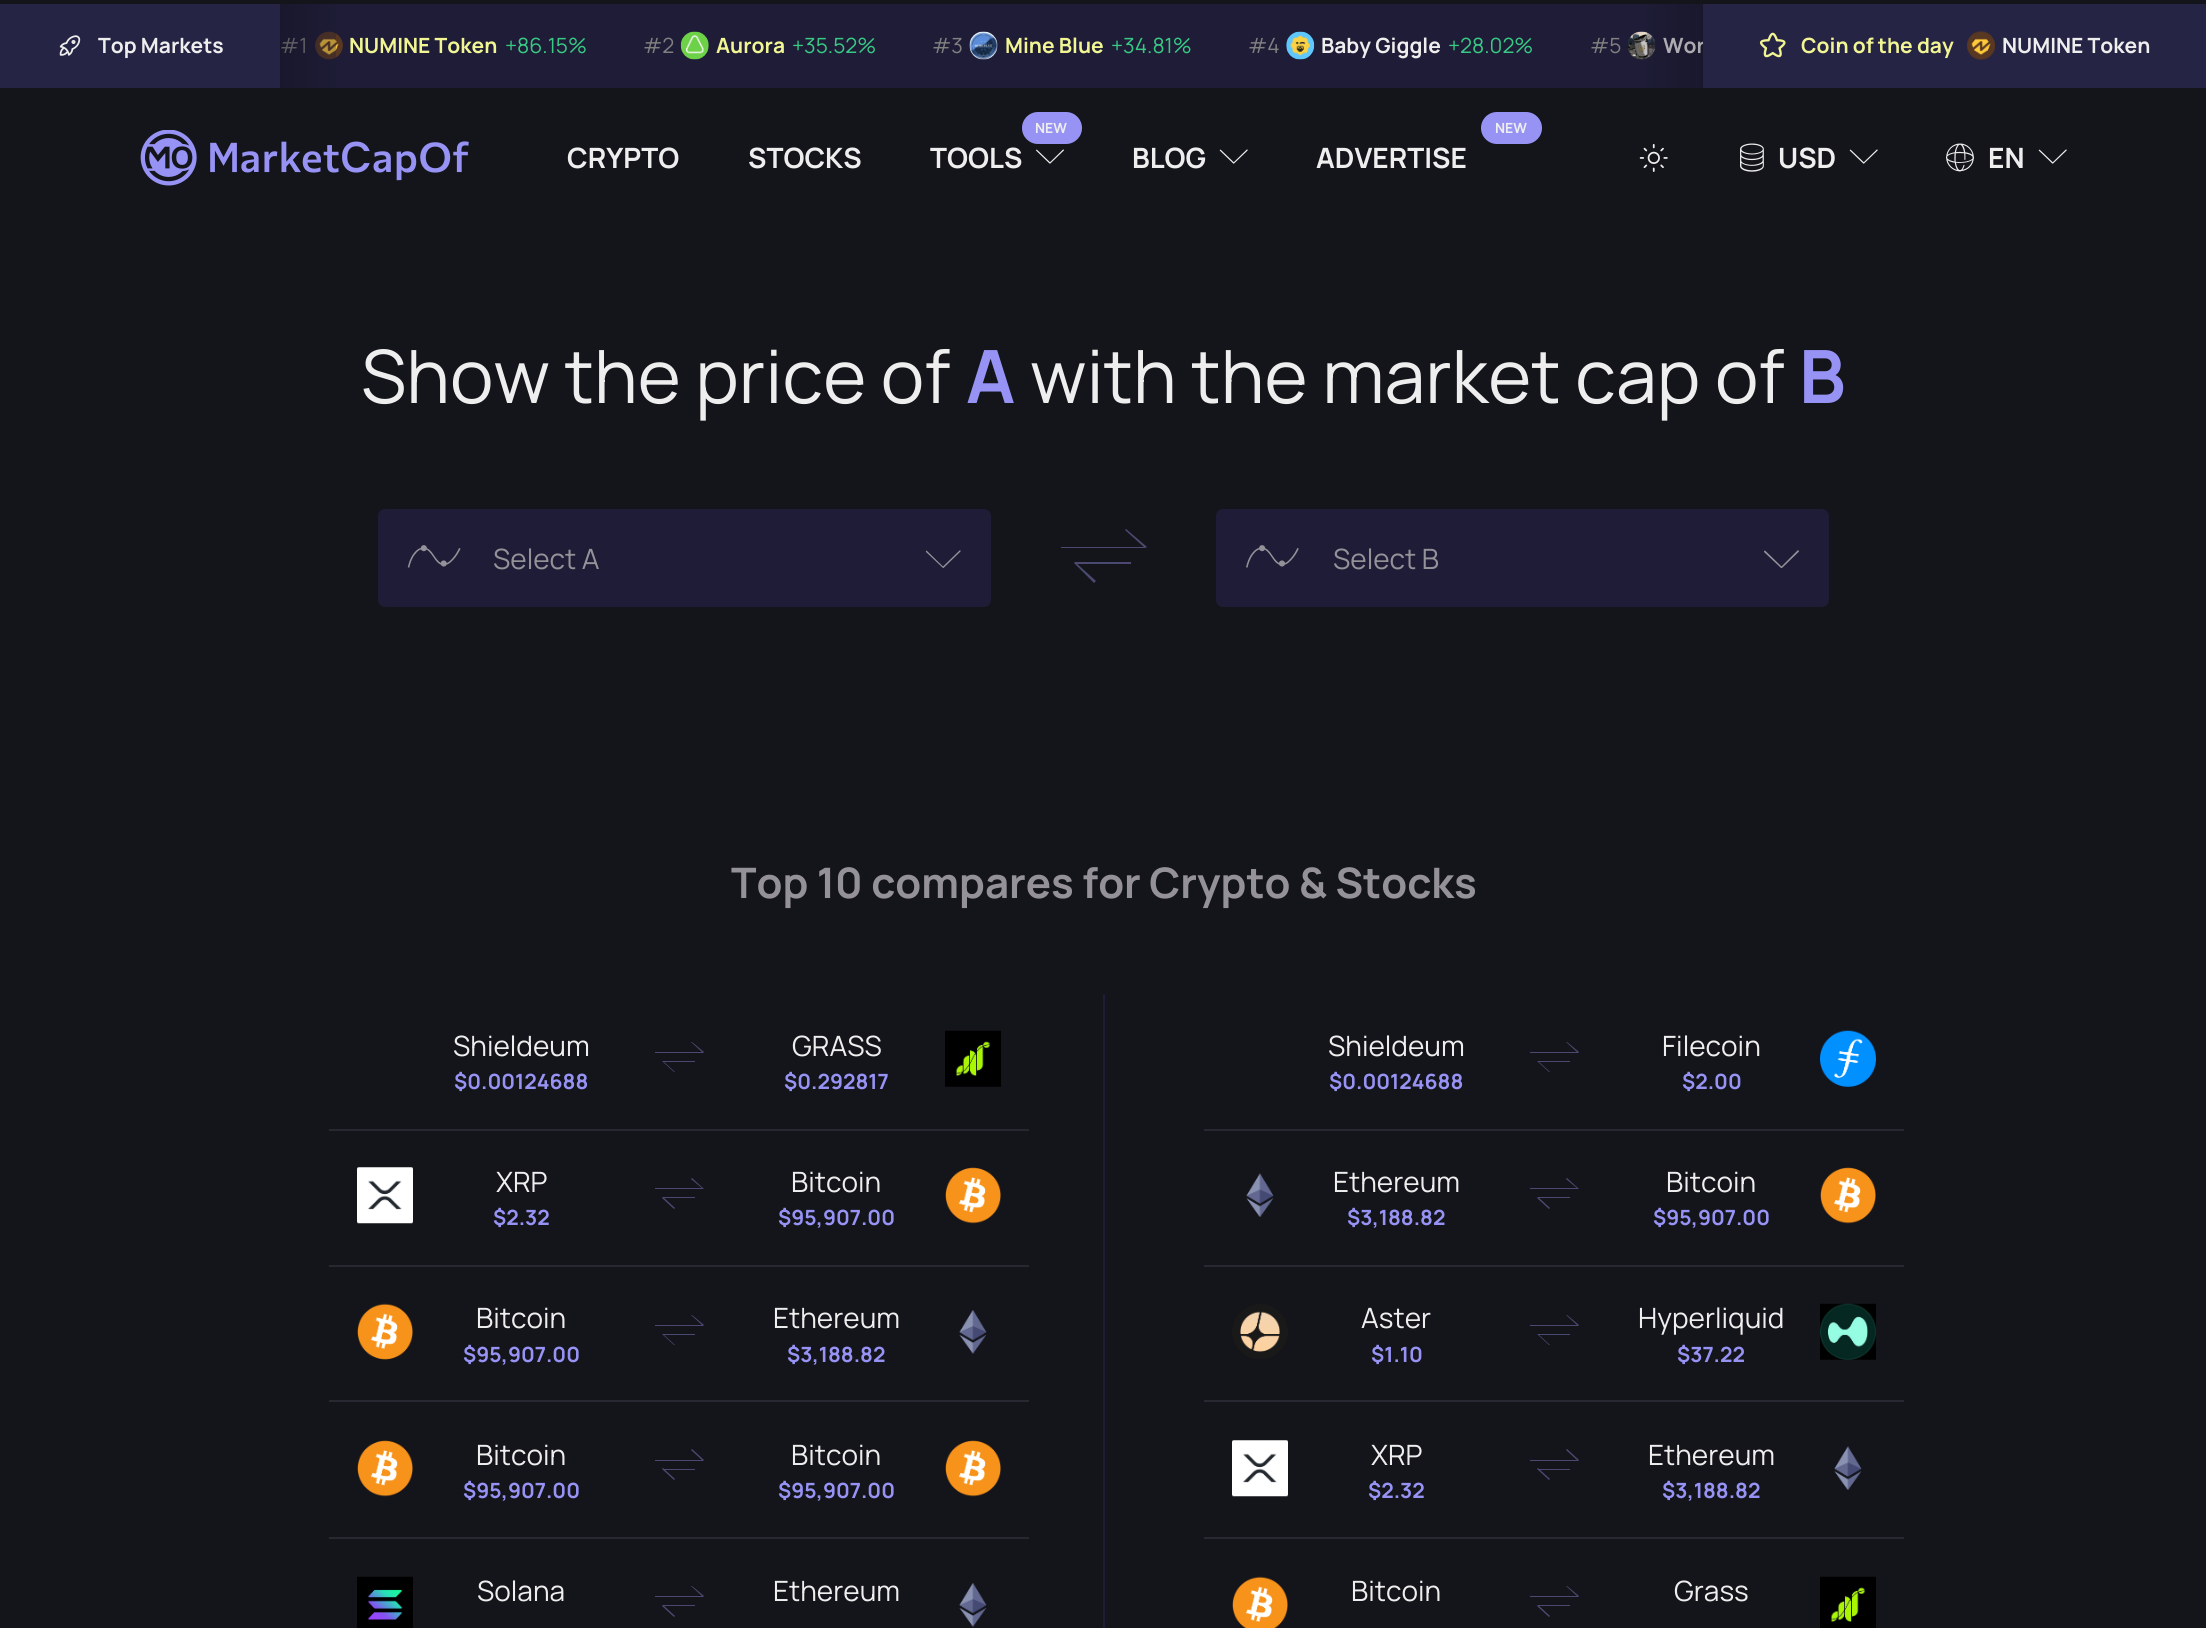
import math
import cairo



def rounded_rect(context, x, y, w, h, r):
    context.new_sub_path()
    for i, (u, v) in enumerate([(x + w - r, y + h - r), (x + r, y + h - r), (x + r, y + r), (x + w - r, y + r)]):
        context.arc(u, v, r, i * math.pi / 2, (i + 1) * math.pi / 2)
    context.close_path()


def draw_image(context, path, x, y, w, h):
    context.save()
    context.set_source_surface(cairo.ImageSurface.create_from_png(path), x, y)
    context.rectangle(x, y, w, h)
    context.fill()
    context.restore()


def draw(context):
    context.set_source_rgb(20 / 255, 20 / 255, 27 / 255)
    context.paint()
    context.set_source_rgb(37 / 255, 36 / 255, 69 / 255)
    context.rectangle(0, 4, 2206, 84)
    context.fill()
    draw_image(context, "images/1.png", 59, 35, 22, 21)
    context.set_source_rgb(30 / 255, 28 / 255, 54 / 255)
    context.rectangle(280, 4, 1423, 84)
    context.fill()
    draw_image(context, "images/2.png", 315, 31, 28, 29)
    draw_image(context, "images/3.png", 680, 31, 29, 29)
    draw_image(context, "images/4.png", 969, 31, 29, 29)
    draw_image(context, "images/5.png", 1286, 31, 29, 29)
    draw_image(context, "images/6.png", 1627, 31, 29, 29)
    draw_image(context, "images/7.png", 1759, 32, 27, 26)
    draw_image(context, "images/8.png", 1967, 31, 28, 29)
    draw_image(context, "images/9.png", 140, 130, 329, 56)
    context.set_source_rgb(151 / 255, 147 / 255, 245 / 255)
    rounded_rect(context, 1022, 112, 60, 32, 16)
    context.fill()
    draw_image(context, "images/10.png", 1036, 149, 28, 15)
    draw_image(context, "images/11.png", 1219, 149, 29, 15)
    rounded_rect(context, 1481, 112, 61, 32, 16)
    context.fill()
    draw_image(context, "images/12.png", 1639, 144, 29, 28)
    draw_image(context, "images/13.png", 1740, 143, 24, 29)
    draw_image(context, "images/11.png", 1849, 149, 29, 15)
    draw_image(context, "images/14.png", 1946, 143, 28, 29)
    draw_image(context, "images/11.png", 2038, 149, 29, 15)
    context.set_source_rgb(30 / 255, 28 / 255, 54 / 255)
    rounded_rect(context, 378, 509, 613, 98, 7)
    context.fill()
    draw_image(context, "images/15.png", 407, 545, 54, 23)
    context.set_source_rgb(148 / 255, 146 / 255, 152 / 255)
    context.new_path()
    context.move_to(926, 552)
    context.line_to(943, 568)
    context.line_to(943.5, 568)
    context.line_to(960.5, 551.5)
    context.curve_to(961, 550.5, 960, 550, 959.5, 550.5)
    context.line_to(943, 566.5)
    context.line_to(927, 551)
    context.curve_to(926.5, 550, 925.5, 551, 926, 552)
    context.close_path()
    context.fill()
    context.set_source_rgb(74 / 255, 73 / 255, 113 / 255)
    context.new_path()
    context.move_to(1061, 547)
    context.line_to(1145, 547)
    context.line_to(1145, 548)
    context.line_to(1061, 548)
    context.close_path()
    context.move_to(1125, 530)
    context.line_to(1126, 529)
    context.line_to(1147, 547)
    context.line_to(1145, 548)
    context.close_path()
    context.move_to(1075, 562)
    context.line_to(1131, 562)
    context.line_to(1131, 564)
    context.line_to(1075, 564)
    context.close_path()
    context.move_to(1074, 563)
    context.line_to(1075, 562)
    context.line_to(1096, 581)
    context.line_to(1094, 583)
    context.close_path()
    context.fill()
    context.set_source_rgb(30 / 255, 28 / 255, 54 / 255)
    rounded_rect(context, 1216, 509, 613, 98, 7)
    context.fill()
    draw_image(context, "images/16.png", 1246, 545, 53, 23)
    context.set_source_rgb(148 / 255, 146 / 255, 152 / 255)
    context.new_path()
    context.move_to(1764, 552)
    context.line_to(1781, 568)
    context.line_to(1782, 568)
    context.line_to(1799, 551.5)
    context.curve_to(1799, 550.5, 1798.5, 550, 1797.5, 550.5)
    context.line_to(1781.5, 566.5)
    context.line_to(1765.5, 551)
    context.curve_to(1764.5, 550, 1764, 551, 1764, 552)
    context.close_path()
    context.fill()
    context.set_source_rgb(40 / 255, 40 / 255, 50 / 255)
    context.rectangle(329, 1129, 700, 2)
    context.fill()
    context.set_source_rgb(74 / 255, 73 / 255, 113 / 255)
    context.new_path()
    context.move_to(655, 1052)
    context.line_to(703, 1052)
    context.line_to(703, 1053)
    context.line_to(655, 1053)
    context.close_path()
    context.move_to(691, 1042)
    context.line_to(692, 1042)
    context.line_to(704, 1052)
    context.line_to(703, 1053)
    context.close_path()
    context.move_to(663, 1061)
    context.line_to(695, 1061)
    context.line_to(695, 1062)
    context.line_to(663, 1062)
    context.close_path()
    context.move_to(662, 1061)
    context.line_to(663, 1061)
    context.line_to(675, 1072)
    context.line_to(674, 1072)
    context.close_path()
    context.fill()
    draw_image(context, "images/17.png", 945, 1030, 56, 57)
    context.set_source_rgb(40 / 255, 40 / 255, 50 / 255)
    context.rectangle(329, 1265, 700, 2)
    context.fill()
    draw_image(context, "images/18.png", 357, 1167, 56, 57)
    context.set_source_rgb(74 / 255, 73 / 255, 113 / 255)
    context.new_path()
    context.move_to(655, 1188)
    context.line_to(703, 1188)
    context.line_to(703, 1189)
    context.line_to(655, 1189)
    context.close_path()
    context.move_to(691, 1179)
    context.line_to(692, 1178)
    context.line_to(704, 1189)
    context.line_to(703, 1189)
    context.close_path()
    context.move_to(663, 1197)
    context.line_to(695, 1197)
    context.line_to(695, 1198)
    context.line_to(663, 1198)
    context.close_path()
    context.move_to(662, 1198)
    context.line_to(663, 1197)
    context.line_to(675, 1208)
    context.line_to(674, 1209)
    context.close_path()
    context.fill()
    draw_image(context, "images/19.png", 945, 1167, 56, 57)
    context.set_source_rgb(40 / 255, 40 / 255, 50 / 255)
    context.rectangle(329, 1400, 700, 2)
    context.fill()
    draw_image(context, "images/20.png", 357, 1303, 56, 57)
    context.set_source_rgb(74 / 255, 73 / 255, 113 / 255)
    context.new_path()
    context.move_to(655, 1325)
    context.line_to(703, 1325)
    context.line_to(703, 1326)
    context.line_to(655, 1326)
    context.close_path()
    context.move_to(691, 1315)
    context.line_to(692, 1315)
    context.line_to(704, 1325)
    context.line_to(703, 1326)
    context.close_path()
    context.move_to(663, 1334)
    context.line_to(695, 1334)
    context.line_to(695, 1335)
    context.line_to(663, 1335)
    context.close_path()
    context.move_to(662, 1334)
    context.line_to(663, 1334)
    context.line_to(675, 1345)
    context.line_to(674, 1345)
    context.close_path()
    context.fill()
    draw_image(context, "images/21.png", 959, 1310, 28, 44)
    context.set_source_rgb(40 / 255, 40 / 255, 50 / 255)
    context.rectangle(329, 1537, 700, 2)
    context.fill()
    draw_image(context, "images/19.png", 357, 1440, 56, 57)
    context.set_source_rgb(74 / 255, 73 / 255, 113 / 255)
    context.new_path()
    context.move_to(655, 1460)
    context.line_to(703, 1460)
    context.line_to(703, 1461)
    context.line_to(655, 1461)
    context.close_path()
    context.move_to(691, 1450)
    context.line_to(692, 1449)
    context.line_to(704, 1460)
    context.line_to(703, 1461)
    context.close_path()
    context.move_to(663, 1469)
    context.line_to(695, 1469)
    context.line_to(695, 1470)
    context.line_to(663, 1470)
    context.close_path()
    context.move_to(662, 1469)
    context.line_to(663, 1468)
    context.line_to(675, 1479)
    context.line_to(674, 1480)
    context.close_path()
    context.fill()
    draw_image(context, "images/19.png", 945, 1440, 56, 57)
    draw_image(context, "images/22.png", 357, 1576, 56, 52)
    context.new_path()
    context.move_to(655, 1596)
    context.line_to(703, 1596)
    context.line_to(703, 1597)
    context.line_to(655, 1597)
    context.close_path()
    context.move_to(691, 1586)
    context.line_to(692, 1586)
    context.line_to(704, 1596)
    context.line_to(703, 1597)
    context.close_path()
    context.move_to(663, 1605)
    context.line_to(695, 1605)
    context.line_to(695, 1606)
    context.line_to(663, 1606)
    context.close_path()
    context.move_to(662, 1606)
    context.line_to(663, 1605)
    context.line_to(675, 1616)
    context.line_to(674, 1617)
    context.close_path()
    context.fill()
    draw_image(context, "images/21.png", 959, 1583, 28, 44)
    context.set_source_rgb(30 / 255, 28 / 255, 54 / 255)
    context.rectangle(1103, 994, 2, 634)
    context.fill()
    context.set_source_rgb(40 / 255, 40 / 255, 50 / 255)
    context.rectangle(1204, 1129, 700, 2)
    context.fill()
    context.set_source_rgb(74 / 255, 73 / 255, 113 / 255)
    context.new_path()
    context.move_to(1530, 1052)
    context.line_to(1578, 1052)
    context.line_to(1578, 1053)
    context.line_to(1530, 1053)
    context.close_path()
    context.move_to(1566, 1042)
    context.line_to(1567, 1042)
    context.line_to(1579, 1052)
    context.line_to(1578, 1053)
    context.close_path()
    context.move_to(1538, 1061)
    context.line_to(1570, 1061)
    context.line_to(1570, 1062)
    context.line_to(1538, 1062)
    context.close_path()
    context.move_to(1537, 1061)
    context.line_to(1538, 1061)
    context.line_to(1550, 1072)
    context.line_to(1549, 1072)
    context.close_path()
    context.fill()
    draw_image(context, "images/23.png", 1820, 1030, 56, 57)
    context.set_source_rgb(40 / 255, 40 / 255, 50 / 255)
    context.rectangle(1204, 1265, 700, 2)
    context.fill()
    draw_image(context, "images/24.png", 1246, 1173, 28, 44)
    context.set_source_rgb(74 / 255, 73 / 255, 113 / 255)
    context.new_path()
    context.move_to(1530, 1188)
    context.line_to(1578, 1188)
    context.line_to(1578, 1189)
    context.line_to(1530, 1189)
    context.close_path()
    context.move_to(1566, 1179)
    context.line_to(1567, 1178)
    context.line_to(1579, 1189)
    context.line_to(1578, 1189)
    context.close_path()
    context.move_to(1538, 1197)
    context.line_to(1570, 1197)
    context.line_to(1570, 1198)
    context.line_to(1538, 1198)
    context.close_path()
    context.move_to(1537, 1198)
    context.line_to(1538, 1197)
    context.line_to(1550, 1208)
    context.line_to(1549, 1209)
    context.close_path()
    context.fill()
    draw_image(context, "images/19.png", 1820, 1167, 56, 57)
    context.set_source_rgb(40 / 255, 40 / 255, 50 / 255)
    context.rectangle(1204, 1400, 700, 2)
    context.fill()
    draw_image(context, "images/25.png", 1232, 1304, 56, 55)
    context.set_source_rgb(74 / 255, 73 / 255, 113 / 255)
    context.new_path()
    context.move_to(1530, 1325)
    context.line_to(1578, 1325)
    context.line_to(1578, 1326)
    context.line_to(1530, 1326)
    context.close_path()
    context.move_to(1566, 1315)
    context.line_to(1567, 1315)
    context.line_to(1579, 1325)
    context.line_to(1578, 1326)
    context.close_path()
    context.move_to(1538, 1334)
    context.line_to(1570, 1334)
    context.line_to(1570, 1335)
    context.line_to(1538, 1335)
    context.close_path()
    context.move_to(1537, 1334)
    context.line_to(1538, 1334)
    context.line_to(1550, 1345)
    context.line_to(1549, 1345)
    context.close_path()
    context.fill()
    draw_image(context, "images/26.png", 1820, 1303, 56, 57)
    context.set_source_rgb(40 / 255, 40 / 255, 50 / 255)
    context.rectangle(1204, 1537, 700, 2)
    context.fill()
    draw_image(context, "images/18.png", 1232, 1440, 56, 57)
    context.set_source_rgb(74 / 255, 73 / 255, 113 / 255)
    context.new_path()
    context.move_to(1530, 1460)
    context.line_to(1578, 1460)
    context.line_to(1578, 1461)
    context.line_to(1530, 1461)
    context.close_path()
    context.move_to(1566, 1450)
    context.line_to(1567, 1449)
    context.line_to(1579, 1460)
    context.line_to(1578, 1461)
    context.close_path()
    context.move_to(1538, 1469)
    context.line_to(1570, 1469)
    context.line_to(1570, 1470)
    context.line_to(1538, 1470)
    context.close_path()
    context.move_to(1537, 1469)
    context.line_to(1538, 1468)
    context.line_to(1550, 1479)
    context.line_to(1549, 1480)
    context.close_path()
    context.fill()
    draw_image(context, "images/24.png", 1834, 1446, 28, 44)
    draw_image(context, "images/27.png", 1232, 1576, 56, 52)
    context.new_path()
    context.move_to(1530, 1596)
    context.line_to(1578, 1596)
    context.line_to(1578, 1597)
    context.line_to(1530, 1597)
    context.close_path()
    context.move_to(1566, 1586)
    context.line_to(1567, 1586)
    context.line_to(1579, 1596)
    context.line_to(1578, 1597)
    context.close_path()
    context.move_to(1538, 1605)
    context.line_to(1570, 1605)
    context.line_to(1570, 1606)
    context.line_to(1538, 1606)
    context.close_path()
    context.move_to(1537, 1606)
    context.line_to(1538, 1605)
    context.line_to(1550, 1616)
    context.line_to(1549, 1617)
    context.close_path()
    context.fill()
    draw_image(context, "images/28.png", 1820, 1576, 56, 52)
    context.select_font_face("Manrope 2 ExtraLight")
    context.set_font_size(21)
    context.set_source_rgb(238 / 255, 238 / 255, 238 / 255)
    context.move_to(98, 53)
    context.show_text("Top Markets")
    context.select_font_face("Manrope ExtraLight")
    context.set_source_rgb(128 / 255, 128 / 255, 128 / 255)
    context.move_to(280, 53)
    context.show_text("#1")
    gradient = cairo.LinearGradient(280, 46, 340, 46)
    gradient.add_color_stop_rgba(0, 12 / 255, 11 / 255, 22 / 255, 0.3)
    gradient.add_color_stop_rgba(1, 30 / 255, 28 / 255, 54 / 255, 0.3)
    context.set_source(gradient)
    context.rectangle(280, 4, 56, 84)
    context.fill()
    context.select_font_face("Manrope 2 ExtraLight")
    context.set_source_rgb(241 / 255, 245 / 255, 147 / 255)
    context.move_to(349, 53)
    context.show_text("NUMINE Token")
    context.select_font_face("Manrope ExtraLight")
    context.set_source_rgb(56 / 255, 202 / 255, 132 / 255)
    context.move_to(505, 53)
    context.show_text("+86.15%")
    context.set_source_rgb(128 / 255, 128 / 255, 128 / 255)
    context.move_to(643, 53)
    context.show_text("#2")
    context.select_font_face("Manrope 2 ExtraLight")
    context.set_source_rgb(241 / 255, 245 / 255, 147 / 255)
    context.move_to(716, 53)
    context.show_text("Aurora")
    context.select_font_face("Manrope ExtraLight")
    context.set_source_rgb(56 / 255, 202 / 255, 132 / 255)
    context.move_to(792, 53)
    context.show_text("+35.52%")
    context.set_source_rgb(128 / 255, 128 / 255, 128 / 255)
    context.move_to(932, 53)
    context.show_text("#3")
    context.select_font_face("Manrope 2 ExtraLight")
    context.set_source_rgb(241 / 255, 245 / 255, 147 / 255)
    context.move_to(1005, 53)
    context.show_text("Mine Blue")
    context.select_font_face("Manrope ExtraLight")
    context.set_source_rgb(56 / 255, 202 / 255, 132 / 255)
    context.move_to(1111, 53)
    context.show_text("+34.81%")
    context.set_source_rgb(128 / 255, 128 / 255, 128 / 255)
    context.move_to(1248, 53)
    context.show_text("#4")
    context.select_font_face("Manrope 2 ExtraLight")
    context.set_source_rgb(238 / 255, 238 / 255, 238 / 255)
    context.move_to(1321, 53)
    context.show_text("Baby Giggle")
    context.select_font_face("Manrope ExtraLight")
    context.set_source_rgb(56 / 255, 202 / 255, 132 / 255)
    context.move_to(1448, 53)
    context.show_text("+28.02%")
    context.set_source_rgb(128 / 255, 128 / 255, 128 / 255)
    context.move_to(1590, 53)
    context.show_text("#5")
    context.save()
    context.rectangle(280, 4, 1423, 84)
    context.clip()
    context.select_font_face("Manrope 2 ExtraLight")
    context.set_source_rgb(238 / 255, 238 / 255, 238 / 255)
    context.move_to(1663, 53)
    context.show_text("Wor")
    context.restore()
    gradient = cairo.LinearGradient(1703, 46, 1643, 46)
    gradient.add_color_stop_rgba(0, 12 / 255, 11 / 255, 22 / 255, 0.3)
    gradient.add_color_stop_rgba(1, 30 / 255, 28 / 255, 54 / 255, 0.3)
    context.set_source(gradient)
    context.rectangle(1647, 4, 56, 84)
    context.fill()
    context.select_font_face("Manrope 2 ExtraLight")
    context.set_source_rgb(241 / 255, 245 / 255, 147 / 255)
    context.move_to(1801, 53)
    context.show_text("Coin of the day")
    context.set_source_rgb(238 / 255, 238 / 255, 238 / 255)
    context.move_to(2002, 53)
    context.show_text("NUMINE Token")
    context.set_font_size(28)
    context.move_to(567, 168)
    context.show_text("CRYPTO")
    context.move_to(748, 168)
    context.show_text("STOCKS")
    context.set_font_size(14)
    context.move_to(1035, 133)
    context.show_text("NEW")
    context.set_font_size(28)
    context.move_to(930, 168)
    context.show_text("TOOLS")
    context.move_to(1132, 168)
    context.show_text("BLOG")
    context.set_font_size(14)
    context.move_to(1495, 133)
    context.show_text("NEW")
    context.set_font_size(28)
    context.move_to(1316, 168)
    context.show_text("ADVERTISE")
    context.move_to(1778, 168)
    context.show_text("USD")
    context.move_to(1988, 168)
    context.show_text("EN")
    context.select_font_face("Manrope ExtraLight")
    context.set_font_size(73.5)
    context.move_to(361, 403)
    context.show_text("Show the price of")
    context.select_font_face("Manrope 2 ExtraLight")
    context.set_source_rgb(151 / 255, 147 / 255, 245 / 255)
    context.move_to(966, 403)
    context.show_text("A")
    context.select_font_face("Manrope ExtraLight")
    context.set_source_rgb(238 / 255, 238 / 255, 238 / 255)
    context.move_to(1030, 403)
    context.show_text("with the market cap of")
    context.select_font_face("Manrope 2 ExtraLight")
    context.set_source_rgb(151 / 255, 147 / 255, 245 / 255)
    context.move_to(1799, 403)
    context.show_text("B")
    context.select_font_face("Manrope ExtraLight")
    context.set_font_size(28)
    context.set_source_rgb(148 / 255, 146 / 255, 152 / 255)
    context.move_to(493, 569)
    context.show_text("Select A")
    context.move_to(1333, 569)
    context.show_text("Select B")
    context.select_font_face("Manrope 2 ExtraLight")
    context.set_font_size(42)
    context.move_to(731, 898)
    context.show_text("Top 10 compares for Crypto & Stocks")
    context.select_font_face("Manrope ExtraLight")
    context.set_font_size(28)
    context.set_source_rgb(238 / 255, 238 / 255, 238 / 255)
    context.move_to(453, 1056)
    context.show_text("Shieldeum")
    context.select_font_face("Manrope 2 ExtraLight")
    context.set_font_size(21)
    context.set_source_rgb(151 / 255, 147 / 255, 245 / 255)
    context.move_to(454, 1089)
    context.show_text("$0.00124688")
    context.select_font_face("Manrope ExtraLight")
    context.set_font_size(28)
    context.set_source_rgb(238 / 255, 238 / 255, 238 / 255)
    context.move_to(792, 1056)
    context.show_text("GRASS")
    context.select_font_face("Manrope 2 ExtraLight")
    context.set_font_size(21)
    context.set_source_rgb(151 / 255, 147 / 255, 245 / 255)
    context.move_to(784, 1089)
    context.show_text("$0.292817")
    context.select_font_face("Manrope ExtraLight")
    context.set_font_size(28)
    context.set_source_rgb(238 / 255, 238 / 255, 238 / 255)
    context.move_to(496, 1192)
    context.show_text("XRP")
    context.select_font_face("Manrope 2 ExtraLight")
    context.set_font_size(21)
    context.set_source_rgb(151 / 255, 147 / 255, 245 / 255)
    context.move_to(493, 1225)
    context.show_text("$2.32")
    context.select_font_face("Manrope ExtraLight")
    context.set_font_size(28)
    context.set_source_rgb(238 / 255, 238 / 255, 238 / 255)
    context.move_to(791, 1192)
    context.show_text("Bitcoin")
    context.select_font_face("Manrope 2 ExtraLight")
    context.set_font_size(21)
    context.set_source_rgb(151 / 255, 147 / 255, 245 / 255)
    context.move_to(778, 1225)
    context.show_text("$95,907.00")
    context.select_font_face("Manrope ExtraLight")
    context.set_font_size(28)
    context.set_source_rgb(238 / 255, 238 / 255, 238 / 255)
    context.move_to(476, 1328)
    context.show_text("Bitcoin")
    context.select_font_face("Manrope 2 ExtraLight")
    context.set_font_size(21)
    context.set_source_rgb(151 / 255, 147 / 255, 245 / 255)
    context.move_to(463, 1362)
    context.show_text("$95,907.00")
    context.select_font_face("Manrope ExtraLight")
    context.set_font_size(28)
    context.set_source_rgb(238 / 255, 238 / 255, 238 / 255)
    context.move_to(773, 1328)
    context.show_text("Ethereum")
    context.select_font_face("Manrope 2 ExtraLight")
    context.set_font_size(21)
    context.set_source_rgb(151 / 255, 147 / 255, 245 / 255)
    context.move_to(787, 1362)
    context.show_text("$3,188.82")
    context.select_font_face("Manrope ExtraLight")
    context.set_font_size(28)
    context.set_source_rgb(238 / 255, 238 / 255, 238 / 255)
    context.move_to(476, 1465)
    context.show_text("Bitcoin")
    context.select_font_face("Manrope 2 ExtraLight")
    context.set_font_size(21)
    context.set_source_rgb(151 / 255, 147 / 255, 245 / 255)
    context.move_to(463, 1498)
    context.show_text("$95,907.00")
    context.select_font_face("Manrope ExtraLight")
    context.set_font_size(28)
    context.set_source_rgb(238 / 255, 238 / 255, 238 / 255)
    context.move_to(791, 1465)
    context.show_text("Bitcoin")
    context.select_font_face("Manrope 2 ExtraLight")
    context.set_font_size(21)
    context.set_source_rgb(151 / 255, 147 / 255, 245 / 255)
    context.move_to(778, 1498)
    context.show_text("$95,907.00")
    context.select_font_face("Manrope ExtraLight")
    context.set_font_size(28)
    context.set_source_rgb(238 / 255, 238 / 255, 238 / 255)
    context.move_to(477, 1601)
    context.show_text("Solana")
    context.move_to(773, 1601)
    context.show_text("Ethereum")
    context.move_to(1328, 1056)
    context.show_text("Shieldeum")
    context.select_font_face("Manrope 2 ExtraLight")
    context.set_font_size(21)
    context.set_source_rgb(151 / 255, 147 / 255, 245 / 255)
    context.move_to(1329, 1089)
    context.show_text("$0.00124688")
    context.select_font_face("Manrope ExtraLight")
    context.set_font_size(28)
    context.set_source_rgb(238 / 255, 238 / 255, 238 / 255)
    context.move_to(1662, 1056)
    context.show_text("Filecoin")
    context.select_font_face("Manrope 2 ExtraLight")
    context.set_font_size(21)
    context.set_source_rgb(151 / 255, 147 / 255, 245 / 255)
    context.move_to(1682, 1089)
    context.show_text("$2.00")
    context.select_font_face("Manrope ExtraLight")
    context.set_font_size(28)
    context.set_source_rgb(238 / 255, 238 / 255, 238 / 255)
    context.move_to(1333, 1192)
    context.show_text("Ethereum")
    context.select_font_face("Manrope 2 ExtraLight")
    context.set_font_size(21)
    context.set_source_rgb(151 / 255, 147 / 255, 245 / 255)
    context.move_to(1347, 1225)
    context.show_text("$3,188.82")
    context.select_font_face("Manrope ExtraLight")
    context.set_font_size(28)
    context.set_source_rgb(238 / 255, 238 / 255, 238 / 255)
    context.move_to(1666, 1192)
    context.show_text("Bitcoin")
    context.select_font_face("Manrope 2 ExtraLight")
    context.set_font_size(21)
    context.set_source_rgb(151 / 255, 147 / 255, 245 / 255)
    context.move_to(1653, 1225)
    context.show_text("$95,907.00")
    context.select_font_face("Manrope ExtraLight")
    context.set_font_size(28)
    context.set_source_rgb(238 / 255, 238 / 255, 238 / 255)
    context.move_to(1361, 1328)
    context.show_text("Aster")
    context.select_font_face("Manrope 2 ExtraLight")
    context.set_font_size(21)
    context.set_source_rgb(151 / 255, 147 / 255, 245 / 255)
    context.move_to(1371, 1362)
    context.show_text("$1.10")
    context.select_font_face("Manrope ExtraLight")
    context.set_font_size(28)
    context.set_source_rgb(238 / 255, 238 / 255, 238 / 255)
    context.move_to(1638, 1328)
    context.show_text("Hyperliquid")
    context.select_font_face("Manrope 2 ExtraLight")
    context.set_font_size(21)
    context.set_source_rgb(151 / 255, 147 / 255, 245 / 255)
    context.move_to(1677, 1362)
    context.show_text("$37.22")
    context.select_font_face("Manrope ExtraLight")
    context.set_font_size(28)
    context.set_source_rgb(238 / 255, 238 / 255, 238 / 255)
    context.move_to(1371, 1465)
    context.show_text("XRP")
    context.select_font_face("Manrope 2 ExtraLight")
    context.set_font_size(21)
    context.set_source_rgb(151 / 255, 147 / 255, 245 / 255)
    context.move_to(1368, 1498)
    context.show_text("$2.32")
    context.select_font_face("Manrope ExtraLight")
    context.set_font_size(28)
    context.set_source_rgb(238 / 255, 238 / 255, 238 / 255)
    context.move_to(1648, 1465)
    context.show_text("Ethereum")
    context.select_font_face("Manrope 2 ExtraLight")
    context.set_font_size(21)
    context.set_source_rgb(151 / 255, 147 / 255, 245 / 255)
    context.move_to(1662, 1498)
    context.show_text("$3,188.82")
    context.select_font_face("Manrope ExtraLight")
    context.set_font_size(28)
    context.set_source_rgb(238 / 255, 238 / 255, 238 / 255)
    context.move_to(1351, 1601)
    context.show_text("Bitcoin")
    context.move_to(1674, 1601)
    context.show_text("Grass")


surface = cairo.ImageSurface(cairo.Format.RGB24, 2206, 1628)
context = cairo.Context(surface)
options = cairo.FontOptions()
options.set_hint_metrics(cairo.HintMetrics.OFF)
options.set_hint_style(cairo.HintStyle.NONE)
context.set_font_options(options)
context.set_miter_limit(4)
draw(context)
surface.write_to_png("out.png")
